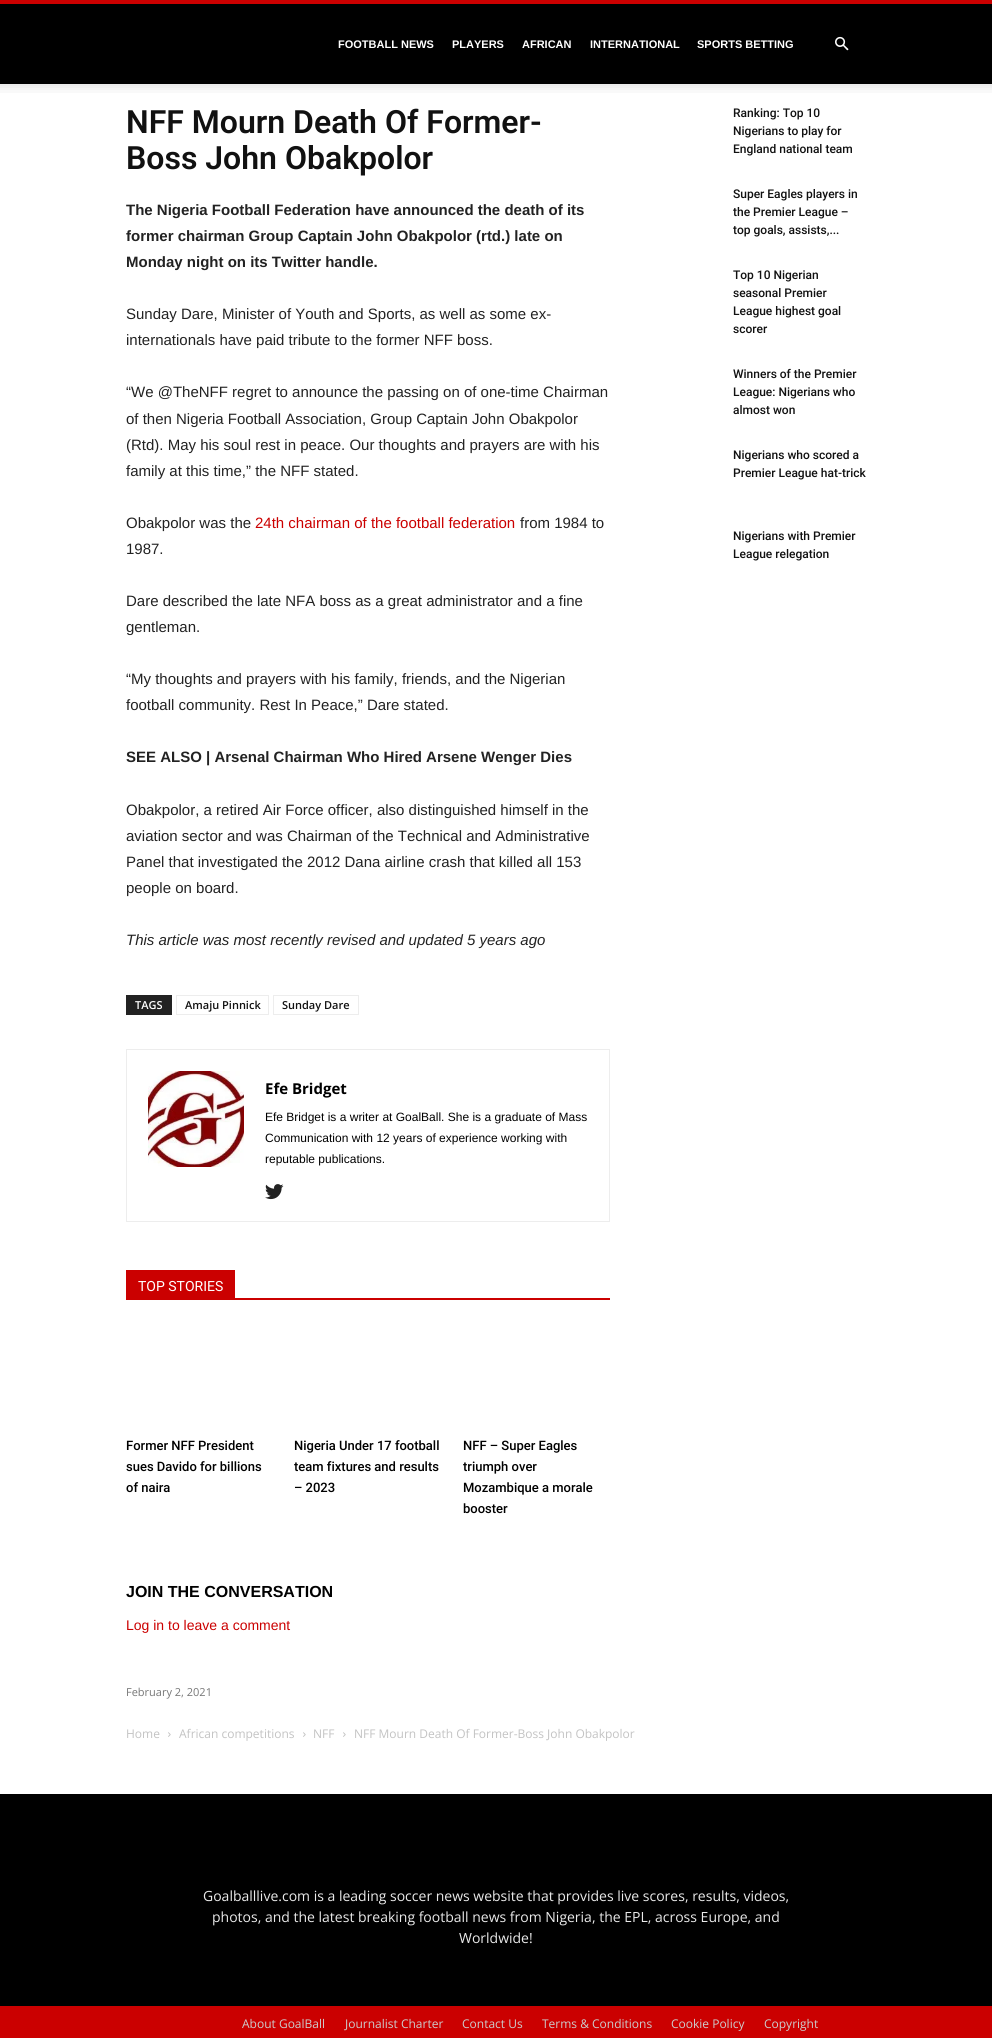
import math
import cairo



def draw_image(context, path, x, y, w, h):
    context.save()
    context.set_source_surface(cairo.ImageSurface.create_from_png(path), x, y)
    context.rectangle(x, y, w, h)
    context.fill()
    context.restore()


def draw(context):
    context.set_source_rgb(1, 1, 1)
    context.paint()
    context.set_source_rgb(203 / 255, 0, 0)
    context.rectangle(0, 0, 992, 4)
    context.fill()
    context.set_source_rgb(0, 0, 0)
    context.rectangle(0, 4, 992, 80)
    context.fill()
    draw_image(context, "images/1.png", 835, 36, 14, 15)
    draw_image(context, "images/2.png", 0, 84, 992, 9)
    context.set_source_rgb(34 / 255, 34 / 255, 34 / 255)
    context.rectangle(126, 995, 46, 20)
    context.fill()
    context.rectangle(176.5, 995.5, 92, 19)
    context.set_source_rgb(237 / 255, 237 / 255, 237 / 255)
    context.set_line_width(1)
    context.stroke()
    context.rectangle(273.5, 995.5, 85, 19)
    context.stroke()
    context.rectangle(126.5, 1049.5, 483, 172)
    context.stroke()
    draw_image(context, "images/3.png", 148, 1071, 96, 96)
    draw_image(context, "images/4.png", 265, 1184, 19, 16)
    context.set_source_rgb(203 / 255, 0, 0)
    context.rectangle(126, 1298, 484, 2)
    context.fill()
    context.rectangle(126, 1270, 109, 28)
    context.fill()
    draw_image(context, "images/5.png", 168, 1732, 3, 5)
    draw_image(context, "images/5.png", 303, 1732, 3, 5)
    draw_image(context, "images/5.png", 343, 1732, 3, 5)
    context.set_source_rgb(0, 0, 0)
    context.rectangle(0, 1794, 992, 212)
    context.fill()
    context.set_source_rgb(203 / 255, 0, 0)
    context.rectangle(0, 2006, 992, 32)
    context.fill()
    context.select_font_face("Liberation Sans", cairo.FontSlant.NORMAL, cairo.FontWeight.BOLD)
    context.set_font_size(11)
    context.set_source_rgb(1, 1, 1)
    context.move_to(338, 48)
    context.show_text("FOOTBALL NEWS")
    context.move_to(452, 48)
    context.show_text("PLAYERS")
    context.move_to(522, 48)
    context.show_text("AFRICAN")
    context.move_to(590, 48)
    context.show_text("INTERNATIONAL")
    context.move_to(697, 48)
    context.show_text("SPORTS BETTING")
    context.select_font_face("Roboto SemiBold")
    context.set_font_size(32)
    context.set_source_rgb(17 / 255, 17 / 255, 17 / 255)
    context.move_to(126, 133)
    context.show_text("NFF Mourn Death Of Former-")
    context.move_to(126, 169)
    context.show_text("Boss John Obakpolor")
    context.select_font_face("Liberation Sans", cairo.FontSlant.NORMAL, cairo.FontWeight.BOLD)
    context.set_font_size(15)
    context.set_source_rgb(34 / 255, 34 / 255, 34 / 255)
    context.move_to(126, 215)
    context.show_text("The Nigeria Football Federation have announced the death of its")
    context.move_to(126, 241)
    context.show_text("former chairman Group Captain John Obakpolor (rtd.) late on")
    context.move_to(126, 267)
    context.show_text("Monday night on its Twitter handle.")
    context.select_font_face("Liberation Sans")
    context.move_to(126, 319)
    context.show_text("Sunday Dare, Minister of Youth and Sports, as well as some ex-")
    context.move_to(126, 345)
    context.show_text("internationals have paid tribute to the former NFF boss.")
    context.move_to(126, 397)
    context.show_text("“We @TheNFF regret to announce the passing on of one-time Chairman")
    context.move_to(126, 424)
    context.show_text("of then Nigeria Football Association, Group Captain John Obakpolor")
    context.move_to(126, 450)
    context.show_text("(Rtd). May his soul rest in peace. Our thoughts and prayers are with his")
    context.move_to(126, 476)
    context.show_text("family at this time,” the NFF stated.")
    context.move_to(126, 528)
    context.show_text("Obakpolor was the")
    context.set_source_rgb(203 / 255, 0, 0)
    context.move_to(255, 528)
    context.show_text("24th chairman of the football federation")
    context.set_source_rgb(34 / 255, 34 / 255, 34 / 255)
    context.move_to(520, 528)
    context.show_text("from 1984 to")
    context.move_to(126, 554)
    context.show_text("1987.")
    context.move_to(126, 606)
    context.show_text("Dare described the late NFA boss as a great administrator and a fine")
    context.move_to(126, 632)
    context.show_text("gentleman.")
    context.move_to(126, 684)
    context.show_text("“My thoughts and prayers with his family, friends, and the Nigerian")
    context.move_to(126, 710)
    context.show_text("football community. Rest In Peace,” Dare stated.")
    context.select_font_face("Liberation Sans", cairo.FontSlant.NORMAL, cairo.FontWeight.BOLD)
    context.move_to(126, 762)
    context.show_text("SEE ALSO | Arsenal Chairman Who Hired Arsene Wenger Dies")
    context.select_font_face("Liberation Sans")
    context.move_to(126, 815)
    context.show_text("Obakpolor, a retired Air Force officer, also distinguished himself in the")
    context.move_to(126, 841)
    context.show_text("aviation sector and was Chairman of the Technical and Administrative")
    context.move_to(126, 867)
    context.show_text("Panel that investigated the 2012 Dana airline crash that killed all 153")
    context.move_to(126, 893)
    context.show_text("people on board.")
    context.select_font_face("Liberation Sans", cairo.FontSlant.ITALIC)
    context.move_to(126, 945)
    context.show_text("This article was most recently revised and updated 5 years ago")
    context.select_font_face("Open Sans SemiBold")
    context.set_font_size(11)
    context.set_source_rgb(1, 1, 1)
    context.move_to(135, 1009)
    context.show_text("TAGS")
    context.set_source_rgb(17 / 255, 17 / 255, 17 / 255)
    context.move_to(185, 1009)
    context.show_text("Amaju Pinnick")
    context.move_to(282, 1009)
    context.show_text("Sunday Dare")
    context.select_font_face("Open Sans", cairo.FontSlant.NORMAL, cairo.FontWeight.BOLD)
    context.set_font_size(15)
    context.set_source_rgb(0, 0, 0)
    context.move_to(265, 1094)
    context.show_text("Efe Bridget")
    context.select_font_face("Liberation Sans")
    context.set_font_size(12)
    context.move_to(265, 1121)
    context.show_text("Efe Bridget is a writer at GoalBall. She is a graduate of Mass")
    context.move_to(265, 1142)
    context.show_text("Communication with 12 years of experience working with")
    context.move_to(265, 1163)
    context.show_text("reputable publications.")
    context.select_font_face("Roboto")
    context.set_font_size(14)
    context.set_source_rgb(1, 1, 1)
    context.move_to(138, 1291)
    context.show_text("TOP STORIES")
    context.select_font_face("Roboto Medium")
    context.set_font_size(13)
    context.set_source_rgb(0, 0, 0)
    context.move_to(126, 1450)
    context.show_text("Former NFF President")
    context.move_to(126, 1471)
    context.show_text("sues Davido for billions")
    context.move_to(126, 1492)
    context.show_text("of naira")
    context.move_to(294, 1450)
    context.show_text("Nigeria Under 17 football")
    context.move_to(294, 1471)
    context.show_text("team fixtures and results")
    context.move_to(294, 1492)
    context.show_text("– 2023")
    context.move_to(463, 1450)
    context.show_text("NFF – Super Eagles")
    context.move_to(463, 1471)
    context.show_text("triumph over")
    context.move_to(463, 1492)
    context.show_text("Mozambique a morale")
    context.move_to(463, 1513)
    context.show_text("booster")
    context.select_font_face("Liberation Sans", cairo.FontSlant.NORMAL, cairo.FontWeight.BOLD)
    context.set_font_size(16)
    context.move_to(126, 1597)
    context.show_text("JOIN THE CONVERSATION")
    context.select_font_face("Liberation Sans")
    context.set_font_size(14)
    context.set_source_rgb(203 / 255, 0, 0)
    context.move_to(126, 1630)
    context.show_text("Log in to leave a comment")
    context.select_font_face("Roboto Medium")
    context.set_font_size(12)
    context.set_source_rgb(17 / 255, 17 / 255, 17 / 255)
    context.move_to(733, 117)
    context.show_text("Ranking: Top 10")
    context.move_to(733, 135)
    context.show_text("Nigerians to play for")
    context.move_to(733, 153)
    context.show_text("England national team")
    context.move_to(733, 198)
    context.show_text("Super Eagles players in")
    context.move_to(733, 216)
    context.show_text("the Premier League –")
    context.move_to(733, 234)
    context.show_text("top goals, assists,...")
    context.move_to(733, 279)
    context.show_text("Top 10 Nigerian")
    context.move_to(733, 297)
    context.show_text("seasonal Premier")
    context.move_to(733, 315)
    context.show_text("League highest goal")
    context.move_to(733, 333)
    context.show_text("scorer")
    context.move_to(733, 378)
    context.show_text("Winners of the Premier")
    context.move_to(733, 396)
    context.show_text("League: Nigerians who")
    context.move_to(733, 414)
    context.show_text("almost won")
    context.move_to(733, 459)
    context.show_text("Nigerians who scored a")
    context.move_to(733, 477)
    context.show_text("Premier League hat-trick")
    context.move_to(733, 540)
    context.show_text("Nigerians with Premier")
    context.move_to(733, 558)
    context.show_text("League relegation")
    context.select_font_face("Open Sans")
    context.set_font_size(11)
    context.set_source_rgb(118 / 255, 118 / 255, 118 / 255)
    context.move_to(126, 1696)
    context.show_text("February 2, 2021")
    context.set_font_size(12)
    context.set_source_rgb(195 / 255, 195 / 255, 195 / 255)
    context.move_to(126, 1738)
    context.show_text("Home")
    context.move_to(179, 1738)
    context.show_text("African competitions")
    context.move_to(313, 1738)
    context.show_text("NFF")
    context.move_to(354, 1738)
    context.show_text("NFF Mourn Death Of Former-Boss John Obakpolor")
    context.set_font_size(14)
    context.set_source_rgb(234 / 255, 234 / 255, 234 / 255)
    context.move_to(203, 1901)
    context.show_text("Goalballlive.com is a leading soccer news website that provides live scores, results, videos,")
    context.move_to(212, 1922)
    context.show_text("photos, and the latest breaking football news from Nigeria, the EPL, across Europe, and")
    context.move_to(459, 1943)
    context.show_text("Worldwide!")
    context.set_font_size(12)
    context.set_source_rgb(204 / 255, 204 / 255, 204 / 255)
    context.move_to(242, 2028)
    context.show_text("About GoalBall")
    context.move_to(345, 2028)
    context.show_text("Journalist Charter")
    context.move_to(462, 2028)
    context.show_text("Contact Us")
    context.move_to(542, 2028)
    context.show_text("Terms & Conditions")
    context.move_to(671, 2028)
    context.show_text("Cookie Policy")
    context.move_to(764, 2028)
    context.show_text("Copyright")


surface = cairo.ImageSurface(cairo.Format.RGB24, 992, 2038)
context = cairo.Context(surface)
options = cairo.FontOptions()
options.set_hint_metrics(cairo.HintMetrics.OFF)
options.set_hint_style(cairo.HintStyle.NONE)
context.set_font_options(options)
context.set_miter_limit(4)
draw(context)
surface.write_to_png("out.png")
